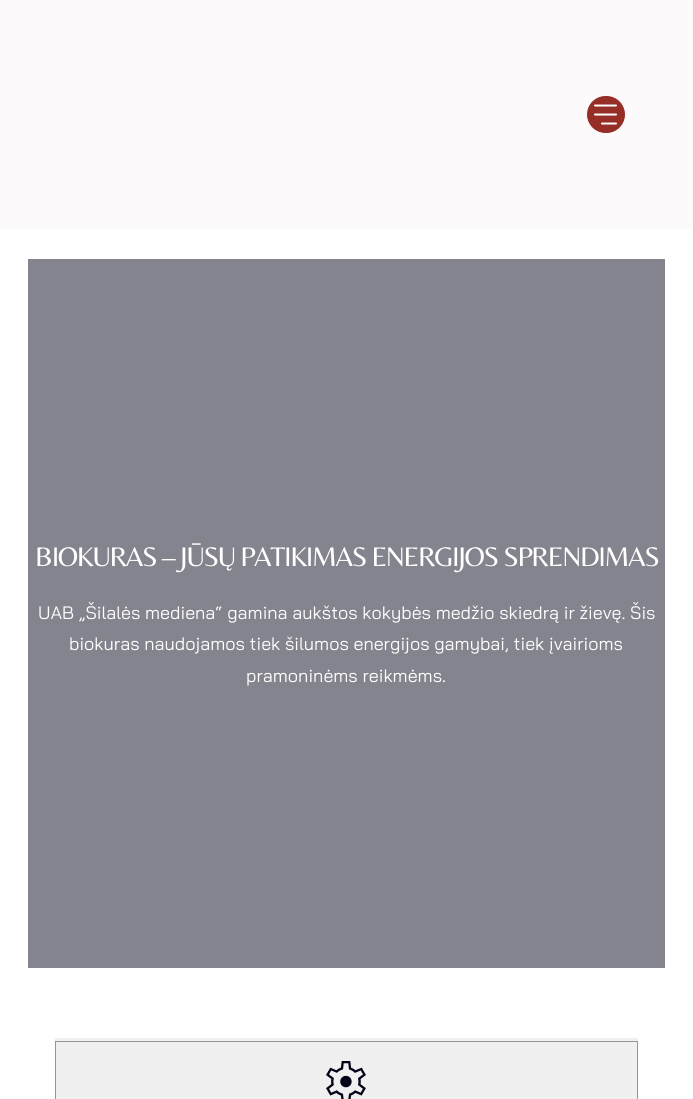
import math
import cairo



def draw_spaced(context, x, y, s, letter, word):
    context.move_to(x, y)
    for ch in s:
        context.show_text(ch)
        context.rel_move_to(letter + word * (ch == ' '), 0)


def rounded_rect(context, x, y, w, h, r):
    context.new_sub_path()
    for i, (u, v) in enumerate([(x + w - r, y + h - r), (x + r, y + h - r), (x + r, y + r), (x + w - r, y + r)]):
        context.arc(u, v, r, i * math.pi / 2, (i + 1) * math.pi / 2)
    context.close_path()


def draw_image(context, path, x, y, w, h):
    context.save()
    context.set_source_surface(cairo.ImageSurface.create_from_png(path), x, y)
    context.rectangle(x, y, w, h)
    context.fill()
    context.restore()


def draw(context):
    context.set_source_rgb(1, 1, 1)
    context.paint()
    context.set_source_rgb(252 / 255, 250 / 255, 250 / 255)
    context.rectangle(0, 0, 693, 229)
    context.fill()
    context.set_source_rgb(150 / 255, 45 / 255, 39 / 255)
    rounded_rect(context, 586.5, 95.5, 39, 38, 19)
    context.fill_preserve()
    context.set_source_rgb(1, 1, 1)
    context.set_line_width(1)
    context.stroke()
    draw_image(context, "images/1.png", 594, 104, 23, 21)
    context.set_source_rgb(131 / 255, 132 / 255, 141 / 255)
    context.rectangle(28, 259, 637, 709)
    context.fill()
    context.set_source_rgb(240 / 255, 240 / 255, 240 / 255)
    context.rectangle(55, 1038, 583, 61)
    context.fill()
    context.rectangle(55.5, 1041.5, 582, 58)
    context.set_source_rgb(150 / 255, 149 / 255, 149 / 255)
    context.stroke()
    draw_image(context, "images/2.png", 326, 1061, 40, 38)
    context.select_font_face("Belleza")
    context.set_font_size(28)
    context.set_source_rgb(1, 1, 1)
    draw_spaced(context, 35, 566, "BIOKURAS – JŪSŲ PATIKIMAS ENERGIJOS SPRENDIMAS", -1.4, 0)
    context.select_font_face("Bai Jamjuree")
    context.set_font_size(18)
    context.move_to(38, 619)
    context.show_text("UAB „Šilalės mediena“ gamina aukštos kokybės medžio skiedrą ir žievę. Šis")
    context.move_to(69, 650)
    context.show_text("biokuras naudojamos tiek šilumos energijos gamybai, tiek įvairioms")
    context.move_to(246, 682)
    context.show_text("pramoninėms reikmėms.")


surface = cairo.ImageSurface(cairo.Format.RGB24, 693, 1099)
context = cairo.Context(surface)
options = cairo.FontOptions()
options.set_hint_metrics(cairo.HintMetrics.OFF)
options.set_hint_style(cairo.HintStyle.NONE)
context.set_font_options(options)
context.set_miter_limit(4)
draw(context)
surface.write_to_png("out.png")
